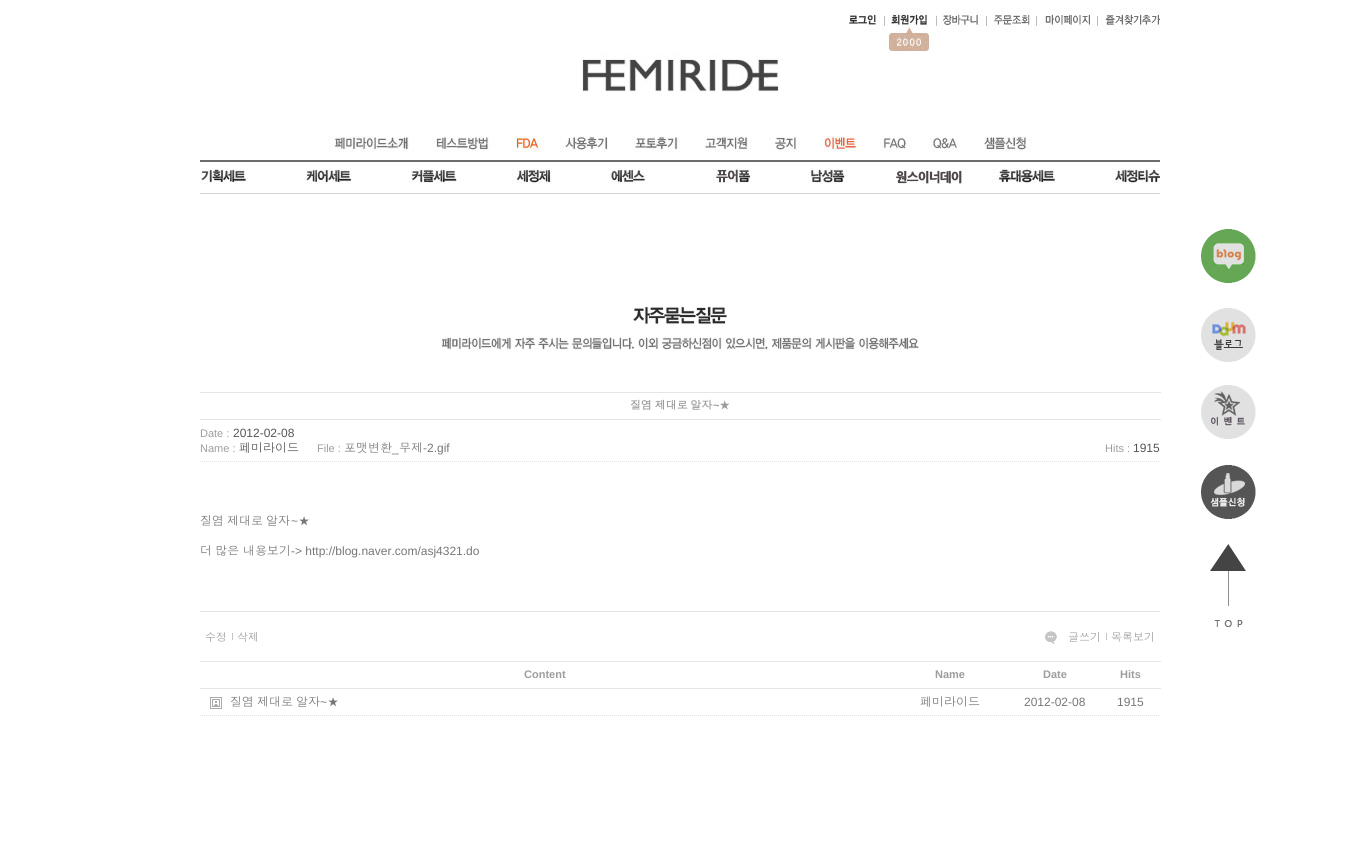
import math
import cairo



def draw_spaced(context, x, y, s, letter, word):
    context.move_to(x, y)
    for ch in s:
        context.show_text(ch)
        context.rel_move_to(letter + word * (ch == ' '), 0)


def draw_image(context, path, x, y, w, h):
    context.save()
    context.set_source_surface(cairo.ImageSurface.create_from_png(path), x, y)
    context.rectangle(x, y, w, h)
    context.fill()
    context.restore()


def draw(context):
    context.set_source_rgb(1, 1, 1)
    context.paint()
    draw_image(context, "images/1.png", 849, 8, 311, 45)
    draw_image(context, "images/2.png", 582, 53, 197, 40)
    draw_image(context, "images/3.png", 200, 136, 960, 58)
    draw_image(context, "images/4.png", 441, 306, 478, 44)
    context.set_source_rgb(229 / 255, 229 / 255, 229 / 255)
    context.rectangle(200, 392, 961, 1)
    context.fill()
    context.rectangle(200, 419, 961, 1)
    context.fill()
    draw_image(context, "images/5.png", 200, 461, 959, 1)
    context.rectangle(200, 611, 960, 1)
    context.fill()
    context.set_source_rgb(197 / 255, 197 / 255, 197 / 255)
    context.rectangle(232, 633, 1, 7)
    context.fill()
    draw_image(context, "images/6.png", 1045, 631, 12, 13)
    context.rectangle(1106, 633, 1, 7)
    context.fill()
    context.set_source_rgb(229 / 255, 229 / 255, 229 / 255)
    context.rectangle(200, 661, 961, 1)
    context.fill()
    context.rectangle(200, 688, 961, 1)
    context.fill()
    draw_image(context, "images/7.png", 200, 715, 689, 1)
    draw_image(context, "images/8.png", 210, 697, 12, 12)
    draw_image(context, "images/9.png", 890, 715, 119, 1)
    draw_image(context, "images/10.png", 1010, 715, 89, 1)
    draw_image(context, "images/11.png", 1100, 715, 59, 1)
    draw_image(context, "images/12.png", 1200, 229, 56, 55)
    draw_image(context, "images/13.png", 1201, 308, 55, 54)
    draw_image(context, "images/14.png", 1201, 385, 55, 54)
    draw_image(context, "images/15.png", 1201, 465, 55, 54)
    draw_image(context, "images/16.png", 1210, 544, 36, 83)
    context.select_font_face("Dotum", cairo.FontSlant.NORMAL, cairo.FontWeight.BOLD)
    context.set_font_size(11)
    context.set_source_rgb(157 / 255, 157 / 255, 157 / 255)
    draw_spaced(context, 630, 409, "질염 제대로 알자", 0, -1)
    context.select_font_face("Liberation Sans", cairo.FontSlant.NORMAL, cairo.FontWeight.BOLD)
    context.move_to(713, 409)
    context.show_text("~")
    context.select_font_face("Dotum", cairo.FontSlant.NORMAL, cairo.FontWeight.BOLD)
    context.move_to(719, 409)
    context.show_text("★")
    context.select_font_face("Liberation Sans")
    context.move_to(200, 437)
    context.show_text("Date :")
    context.set_font_size(12)
    context.set_source_rgb(85 / 255, 85 / 255, 85 / 255)
    context.move_to(233, 437)
    context.show_text("2012-02-08")
    context.set_font_size(11)
    context.set_source_rgb(157 / 255, 157 / 255, 157 / 255)
    context.move_to(200, 452)
    context.show_text("Name :")
    context.select_font_face("Dotum")
    context.set_font_size(12)
    context.set_source_rgb(85 / 255, 85 / 255, 85 / 255)
    context.move_to(239, 452)
    context.show_text("페미라이드")
    context.select_font_face("Liberation Sans")
    context.set_font_size(11)
    context.set_source_rgb(157 / 255, 157 / 255, 157 / 255)
    context.move_to(317, 452)
    context.show_text("File :")
    context.select_font_face("Dotum")
    context.set_font_size(12)
    context.set_source_rgb(119 / 255, 119 / 255, 119 / 255)
    context.move_to(344, 452)
    context.show_text("포맷변환")
    context.move_to(399, 452)
    context.show_text("무제")
    context.select_font_face("Liberation Sans")
    context.move_to(423, 452)
    context.show_text("-2.gif")
    context.move_to(392, 452)
    context.show_text("_")
    context.set_font_size(11)
    context.set_source_rgb(157 / 255, 157 / 255, 157 / 255)
    context.move_to(1105, 452)
    context.show_text("Hits :")
    context.set_font_size(12)
    context.set_source_rgb(85 / 255, 85 / 255, 85 / 255)
    context.move_to(1133, 452)
    context.show_text("1915")
    context.select_font_face("Dotum")
    context.set_source_rgb(119 / 255, 119 / 255, 119 / 255)
    draw_spaced(context, 200, 525, "질염 제대로 알자", 0, -1)
    context.select_font_face("Liberation Sans")
    context.move_to(291, 525)
    context.show_text("~")
    context.select_font_face("Dotum")
    context.move_to(298, 525)
    context.show_text("★")
    context.move_to(200, 555)
    context.show_text("더")
    context.move_to(215, 555)
    context.show_text("많은")
    context.move_to(243, 555)
    context.show_text("내용보기")
    context.select_font_face("Liberation Sans")
    context.move_to(291, 555)
    context.show_text("-> http://blog.naver.com/asj4321.do")
    context.select_font_face("Dotum")
    context.set_font_size(11)
    context.set_source_rgb(157 / 255, 157 / 255, 157 / 255)
    context.move_to(205, 641)
    context.show_text("수정")
    context.move_to(237, 641)
    context.show_text("삭제")
    context.move_to(1068, 641)
    context.show_text("글쓰기")
    context.move_to(1111, 641)
    context.show_text("목록보기")
    context.select_font_face("Liberation Sans", cairo.FontSlant.NORMAL, cairo.FontWeight.BOLD)
    context.move_to(524, 678)
    context.show_text("Content")
    context.move_to(935, 678)
    context.show_text("Name")
    context.move_to(1043, 678)
    context.show_text("Date")
    context.move_to(1120, 678)
    context.show_text("Hits")
    context.select_font_face("Dotum")
    context.set_font_size(12)
    context.set_source_rgb(119 / 255, 119 / 255, 119 / 255)
    draw_spaced(context, 230, 706, "질염 제대로 알자", 0, -1)
    context.select_font_face("Liberation Sans")
    context.move_to(320, 706)
    context.show_text("~")
    context.select_font_face("Dotum")
    context.move_to(327, 706)
    context.show_text("★")
    context.move_to(920, 706)
    context.show_text("페미라이드")
    context.select_font_face("Liberation Sans")
    context.move_to(1024, 706)
    context.show_text("2012-02-08")
    context.move_to(1117, 706)
    context.show_text("1915")


surface = cairo.ImageSurface(cairo.Format.RGB24, 1360, 851)
context = cairo.Context(surface)
options = cairo.FontOptions()
options.set_hint_metrics(cairo.HintMetrics.OFF)
options.set_hint_style(cairo.HintStyle.NONE)
context.set_font_options(options)
context.set_miter_limit(4)
draw(context)
surface.write_to_png("out.png")
